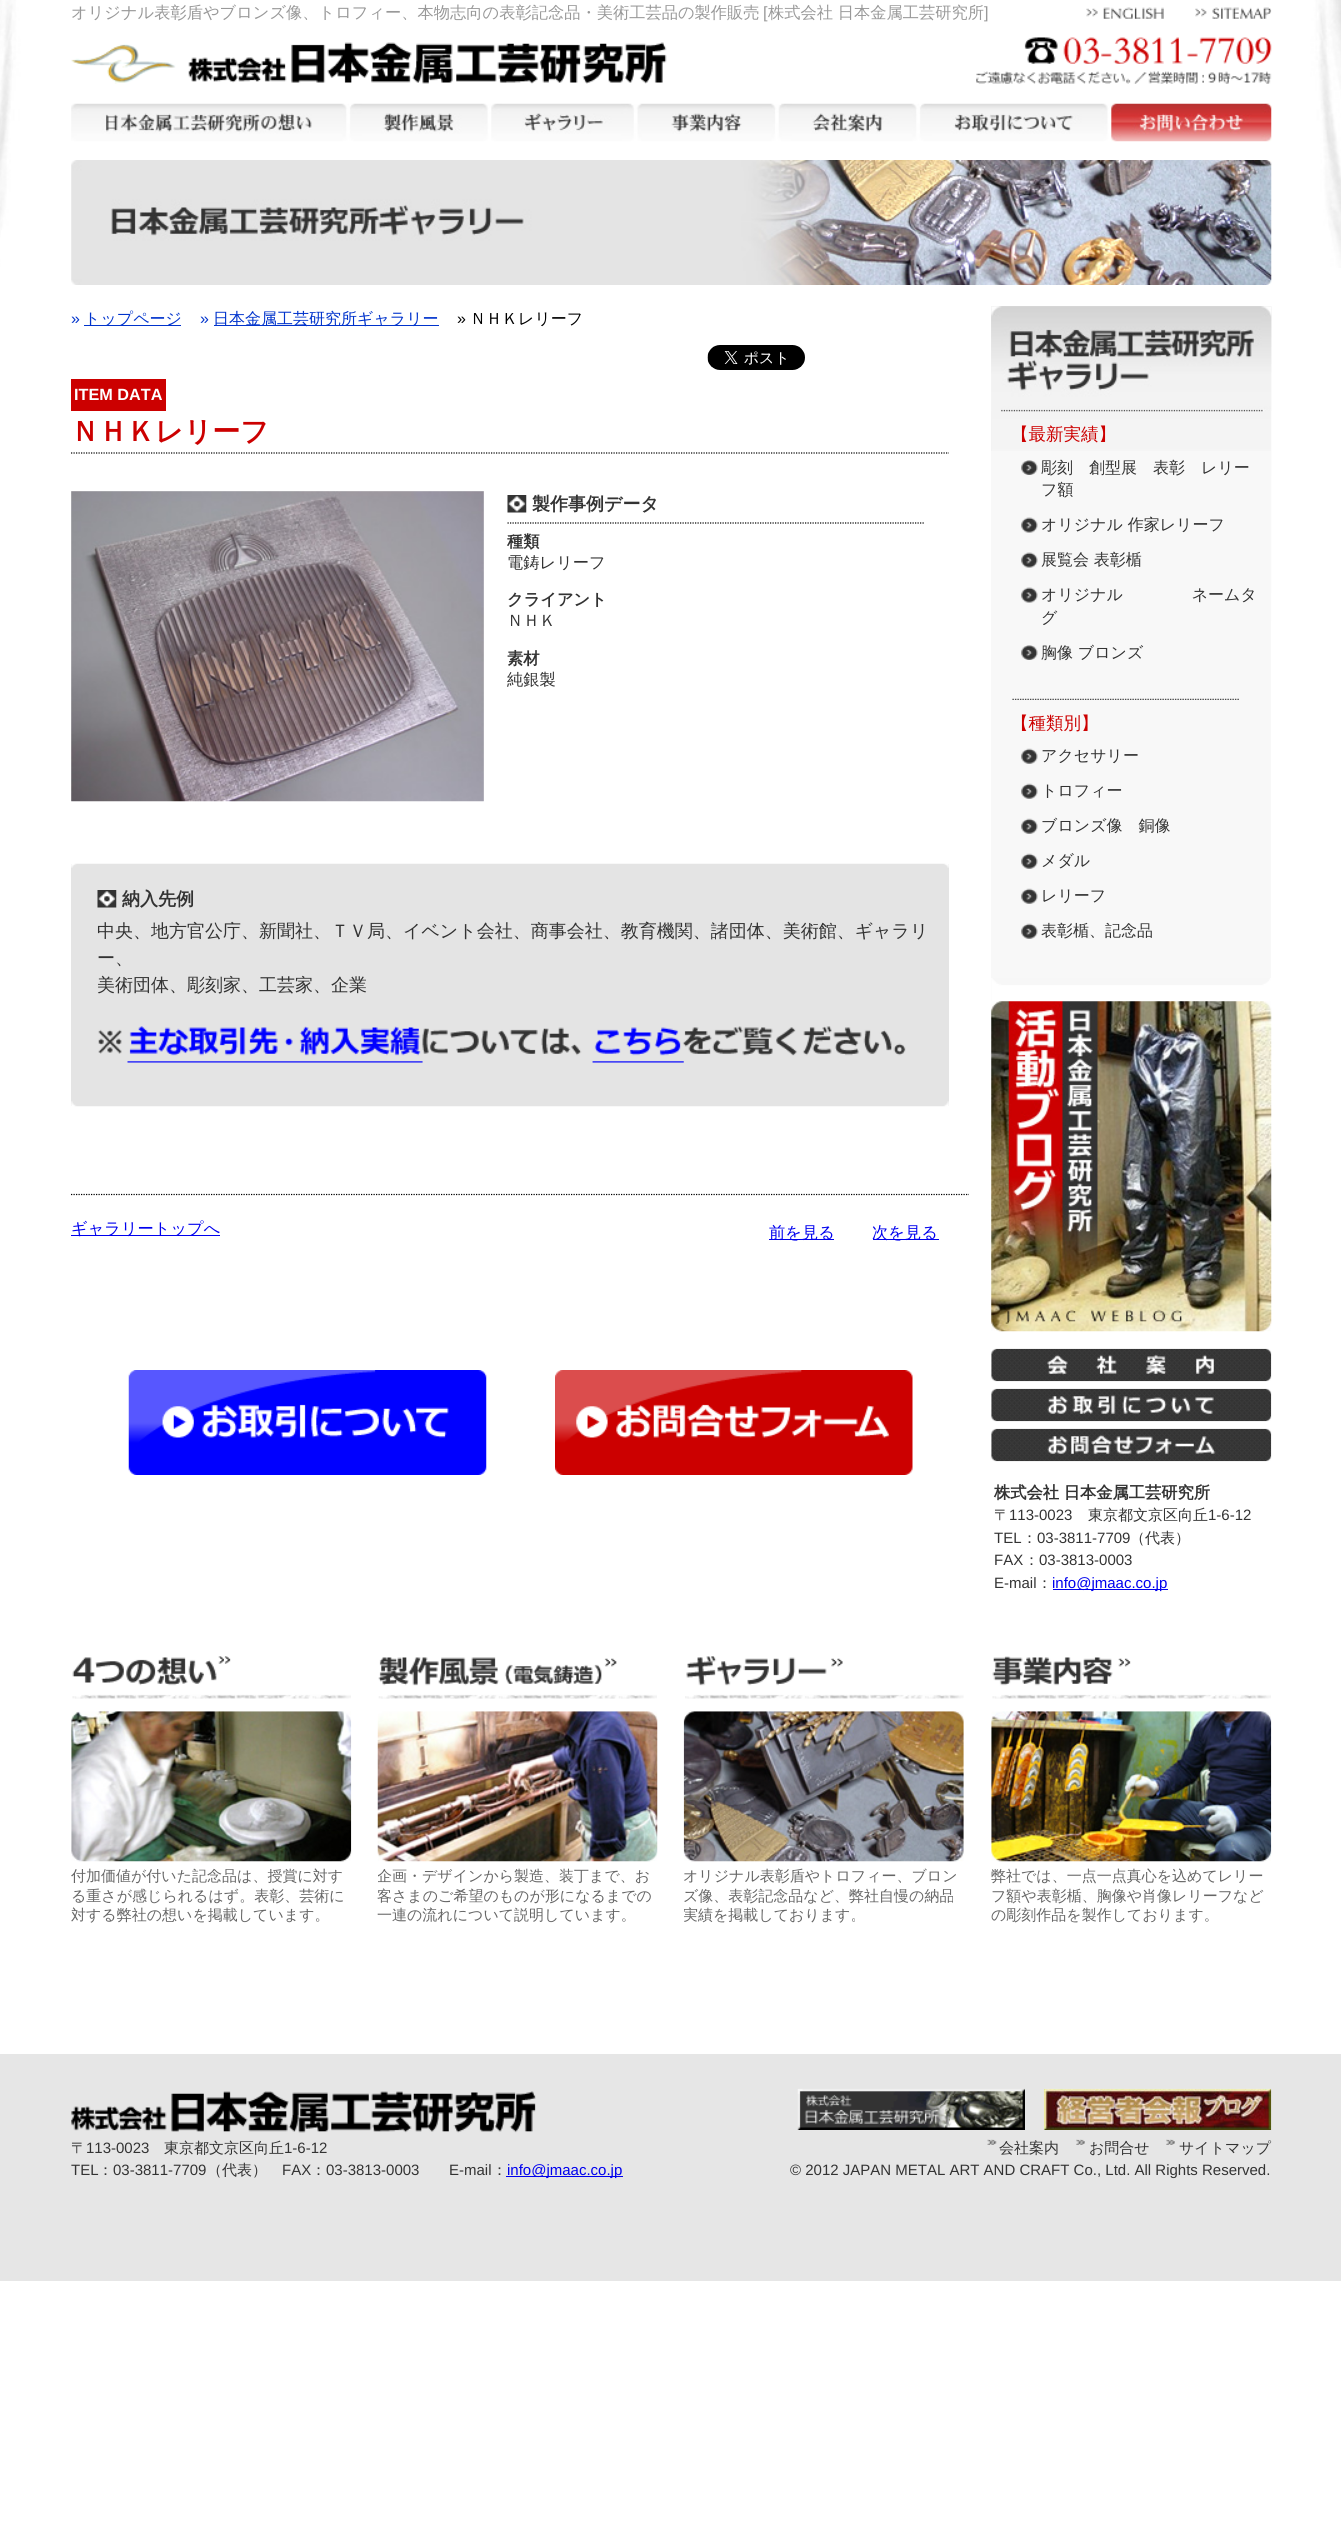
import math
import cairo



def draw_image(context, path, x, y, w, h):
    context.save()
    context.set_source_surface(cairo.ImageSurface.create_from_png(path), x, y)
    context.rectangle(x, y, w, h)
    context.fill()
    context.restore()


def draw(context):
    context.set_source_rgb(1, 1, 1)
    context.paint()
    draw_image(context, "images/1.png", 0, 0, 1341, 268)
    draw_image(context, "images/2.png", 1086, 7, 78, 12)
    draw_image(context, "images/3.png", 1195, 7, 77, 12)
    draw_image(context, "images/4.png", 976, 37, 296, 47)
    draw_image(context, "images/5.png", 71, 42, 596, 42)
    draw_image(context, "images/6.png", 71, 103, 1201, 39)
    draw_image(context, "images/7.png", 71, 160, 1201, 125)
    context.set_source_rgb(0, 51 / 255, 204 / 255)
    context.rectangle(84, 325, 97, 1)
    context.fill()
    context.rectangle(214, 325, 225, 1)
    context.fill()
    draw_image(context, "images/8.png", 707, 345, 98, 25)
    context.new_path()
    context.move_to(71, 453)
    context.line_to(949, 453)
    context.set_source_rgb(0, 0, 0)
    context.set_line_width(1.2)
    context.set_dash([1.25, 1.25])
    context.stroke()
    context.set_source_rgb(204 / 255, 0, 0)
    context.rectangle(71, 379, 95, 32)
    context.fill()
    context.set_source_rgb(228 / 255, 228 / 255, 228 / 255)
    context.rectangle(71, 491, 413, 310)
    context.fill()
    draw_image(context, "images/9.png", 71, 491, 413, 311)
    draw_image(context, "images/10.png", 507, 495, 20, 18)
    context.new_path()
    context.move_to(507.5, 523)
    context.line_to(924, 523)
    context.set_source_rgb(0, 0, 0)
    context.stroke()
    context.set_source_rgb(228 / 255, 228 / 255, 228 / 255)
    context.rectangle(71, 864, 878, 242)
    context.fill()
    draw_image(context, "images/11.png", 71, 863, 878, 5)
    draw_image(context, "images/12.png", 97, 890, 20, 18)
    draw_image(context, "images/13.png", 98, 1026, 808, 37)
    draw_image(context, "images/14.png", 71, 1101, 878, 6)
    context.new_path()
    context.move_to(71, 1194.5)
    context.line_to(969, 1194.5)
    context.set_source_rgb(0, 0, 0)
    context.stroke()
    context.set_source_rgb(0, 0, 238 / 255)
    context.rectangle(71, 1235, 149, 1)
    context.fill()
    context.rectangle(769, 1239, 65, 1)
    context.fill()
    context.rectangle(873, 1239, 66, 1)
    context.fill()
    draw_image(context, "images/15.png", 128, 1370, 359, 105)
    draw_image(context, "images/16.png", 555, 1370, 358, 105)
    draw_image(context, "images/17.png", 991, 306, 281, 315)
    context.set_source_rgb(243 / 255, 243 / 255, 243 / 255)
    context.rectangle(991, 411, 1, 40)
    context.fill()
    draw_image(context, "images/18.png", 991, 306, 281, 106)
    context.set_source_rgb(248 / 255, 248 / 255, 248 / 255)
    context.rectangle(991, 451, 280, 550)
    context.fill()
    draw_image(context, "images/19.png", 1021, 460, 17, 15)
    draw_image(context, "images/20.png", 1021, 517, 17, 16)
    draw_image(context, "images/20.png", 1021, 552, 17, 16)
    draw_image(context, "images/21.png", 1021, 587, 17, 16)
    draw_image(context, "images/19.png", 1021, 645, 17, 15)
    draw_image(context, "images/22.png", 1012, 698, 227, 2)
    draw_image(context, "images/23.png", 1021, 748, 17, 16)
    draw_image(context, "images/23.png", 1021, 783, 17, 16)
    draw_image(context, "images/23.png", 1021, 818, 17, 16)
    draw_image(context, "images/23.png", 1021, 853, 17, 16)
    draw_image(context, "images/23.png", 1021, 888, 17, 16)
    draw_image(context, "images/23.png", 1021, 923, 17, 16)
    draw_image(context, "images/24.png", 991, 978, 280, 23)
    draw_image(context, "images/25.png", 991, 1001, 281, 331)
    draw_image(context, "images/26.png", 991, 1348, 281, 34)
    draw_image(context, "images/27.png", 991, 1388, 281, 34)
    draw_image(context, "images/28.png", 991, 1428, 281, 34)
    context.set_source_rgb(0, 0, 238 / 255)
    context.rectangle(1053, 1589, 115, 1)
    context.fill()
    draw_image(context, "images/29.png", 72, 1656, 279, 43)
    draw_image(context, "images/30.png", 71, 1711, 281, 151)
    draw_image(context, "images/31.png", 378, 1657, 279, 42)
    draw_image(context, "images/32.png", 377, 1711, 281, 151)
    draw_image(context, "images/33.png", 685, 1656, 279, 43)
    draw_image(context, "images/34.png", 683, 1711, 281, 151)
    draw_image(context, "images/35.png", 992, 1656, 279, 43)
    draw_image(context, "images/36.png", 991, 1711, 281, 151)
    context.set_source_rgb(230 / 255, 230 / 255, 230 / 255)
    context.rectangle(0, 2054, 1341, 227)
    context.fill()
    draw_image(context, "images/37.png", 71, 2091, 465, 42)
    context.set_source_rgb(0, 0, 238 / 255)
    context.rectangle(506, 2176, 117, 1)
    context.fill()
    draw_image(context, "images/38.png", 797, 2088, 228, 42)
    draw_image(context, "images/39.png", 1043, 2088, 229, 42)
    draw_image(context, "images/40.png", 987, 2139, 10, 6)
    draw_image(context, "images/41.png", 1076, 2139, 9, 6)
    draw_image(context, "images/41.png", 1166, 2139, 9, 6)
    context.select_font_face("WenQuanYi Zen Hei Medium")
    context.set_font_size(16.25)
    context.set_source_rgb(153 / 255, 153 / 255, 153 / 255)
    context.move_to(71, 18)
    context.show_text("オリジナル表彰盾やブロンズ像、トロフィー、本物志向の表彰記念品・美術工芸品の製作販売")
    context.select_font_face("Liberation Sans")
    context.move_to(763, 18)
    context.show_text("[")
    context.select_font_face("WenQuanYi Zen Hei Medium")
    context.move_to(768, 18)
    context.show_text("株式会社 日本金属工芸研究所")
    context.select_font_face("Liberation Sans")
    context.move_to(984, 18)
    context.show_text("]")
    context.set_font_size(16)
    context.set_source_rgb(0, 51 / 255, 204 / 255)
    context.move_to(71, 324)
    context.show_text("»")
    context.select_font_face("WenQuanYi Zen Hei Medium")
    context.move_to(84, 324)
    context.show_text("トップページ")
    context.select_font_face("Liberation Sans")
    context.move_to(200, 324)
    context.show_text("»")
    context.select_font_face("WenQuanYi Zen Hei Medium")
    context.move_to(213, 324)
    context.show_text("日本金属工芸研究所ギャラリー")
    context.select_font_face("Liberation Sans")
    context.set_source_rgb(0, 0, 0)
    context.move_to(457, 324)
    context.show_text("»")
    context.select_font_face("WenQuanYi Zen Hei Medium")
    context.move_to(470, 324)
    context.show_text("ＮＨＫレリーフ")
    context.select_font_face("Liberation Sans", cairo.FontSlant.NORMAL, cairo.FontWeight.BOLD)
    context.set_font_size(16.25)
    context.set_source_rgb(1, 1, 1)
    context.move_to(74, 400)
    context.show_text("ITEM DATA")
    context.select_font_face("WenQuanYi Zen Hei", cairo.FontSlant.NORMAL, cairo.FontWeight.BOLD)
    context.set_font_size(28)
    context.set_source_rgb(204 / 255, 0, 0)
    context.move_to(71, 441)
    context.show_text("ＮＨＫレリーフ")
    context.set_font_size(18)
    context.set_source_rgb(51 / 255, 51 / 255, 51 / 255)
    context.move_to(532, 510)
    context.show_text("製作事例データ")
    context.set_font_size(16.25)
    context.move_to(507, 547)
    context.show_text("種類")
    context.select_font_face("WenQuanYi Zen Hei Medium")
    context.move_to(507, 568)
    context.show_text("電鋳レリーフ")
    context.select_font_face("WenQuanYi Zen Hei", cairo.FontSlant.NORMAL, cairo.FontWeight.BOLD)
    context.move_to(507, 605)
    context.show_text("クライアント")
    context.select_font_face("WenQuanYi Zen Hei Medium")
    context.move_to(507, 626)
    context.show_text("ＮＨＫ")
    context.select_font_face("WenQuanYi Zen Hei", cairo.FontSlant.NORMAL, cairo.FontWeight.BOLD)
    context.move_to(507, 664)
    context.show_text("素材")
    context.select_font_face("WenQuanYi Zen Hei Medium")
    context.move_to(507, 685)
    context.show_text("純銀製")
    context.select_font_face("WenQuanYi Zen Hei", cairo.FontSlant.NORMAL, cairo.FontWeight.BOLD)
    context.set_font_size(18)
    context.move_to(122, 905)
    context.show_text("納入先例")
    context.select_font_face("WenQuanYi Zen Hei Medium")
    context.move_to(97, 937)
    context.show_text("中央、地方官公庁、新聞社、ＴＶ局、イベント会社、商事会社、教育機関、諸団体、美術館、ギャラリ")
    context.move_to(97, 964)
    context.show_text("ー、")
    context.move_to(97, 991)
    context.show_text("美術団体、彫刻家、工芸家、企業")
    context.set_font_size(16.25)
    context.set_source_rgb(0, 0, 238 / 255)
    context.move_to(71, 1234)
    context.show_text("ギャラリートップへ")
    context.move_to(769, 1238)
    context.show_text("前を見る")
    context.move_to(872, 1238)
    context.show_text("次を見る")
    context.set_font_size(17.5)
    context.set_source_rgb(204 / 255, 0, 0)
    context.move_to(1011, 440)
    context.show_text("【最新実績】")
    context.set_font_size(16)
    context.set_source_rgb(51 / 255, 51 / 255, 51 / 255)
    context.move_to(1041, 473)
    context.show_text("彫刻　創型展　表彰　レリー")
    context.move_to(1041, 495)
    context.show_text("フ額")
    context.move_to(1041, 530)
    context.show_text("オリジナル 作家レリーフ")
    context.move_to(1041, 565)
    context.show_text("展覧会 表彰楯")
    context.move_to(1041, 600)
    context.show_text("オリジナル　　　　 ネームタ")
    context.move_to(1041, 623)
    context.show_text("グ")
    context.move_to(1041, 658)
    context.show_text("胸像 ブロンズ")
    context.set_font_size(17.5)
    context.set_source_rgb(204 / 255, 0, 0)
    context.move_to(1011, 729)
    context.show_text("【種類別】")
    context.set_font_size(16)
    context.set_source_rgb(51 / 255, 51 / 255, 51 / 255)
    context.move_to(1041, 761)
    context.show_text("アクセサリー")
    context.move_to(1041, 796)
    context.show_text("トロフィー")
    context.move_to(1041, 831)
    context.show_text("ブロンズ像　銅像")
    context.move_to(1041, 866)
    context.show_text("メダル")
    context.move_to(1041, 901)
    context.show_text("レリーフ")
    context.move_to(1041, 936)
    context.show_text("表彰楯、記念品")
    context.select_font_face("WenQuanYi Zen Hei", cairo.FontSlant.NORMAL, cairo.FontWeight.BOLD)
    context.set_font_size(16.25)
    context.move_to(994, 1498)
    context.show_text("株式会社 日本金属工芸研究所")
    context.select_font_face("WenQuanYi Zen Hei Medium")
    context.set_font_size(15)
    context.move_to(994, 1520)
    context.show_text("〒")
    context.select_font_face("Liberation Sans")
    context.move_to(1009, 1520)
    context.show_text("113-0023")
    context.select_font_face("WenQuanYi Zen Hei Medium")
    context.move_to(1088, 1520)
    context.show_text("東京都文京区向丘")
    context.select_font_face("Liberation Sans")
    context.move_to(1208, 1520)
    context.show_text("1-6-12")
    context.move_to(994, 1543)
    context.show_text("TEL")
    context.select_font_face("WenQuanYi Zen Hei Medium")
    context.move_to(1022, 1543)
    context.show_text("：")
    context.select_font_face("Liberation Sans")
    context.move_to(1037, 1543)
    context.show_text("03-3811-7709")
    context.select_font_face("WenQuanYi Zen Hei Medium")
    context.move_to(1130, 1543)
    context.show_text("（代表）")
    context.select_font_face("Liberation Sans")
    context.move_to(994, 1565)
    context.show_text("FAX")
    context.select_font_face("WenQuanYi Zen Hei Medium")
    context.move_to(1024, 1565)
    context.show_text("：")
    context.select_font_face("Liberation Sans")
    context.move_to(1039, 1565)
    context.show_text("03-3813-0003")
    context.move_to(994, 1588)
    context.show_text("E-mail")
    context.select_font_face("WenQuanYi Zen Hei Medium")
    context.move_to(1037, 1588)
    context.show_text("：")
    context.select_font_face("Liberation Sans")
    context.set_source_rgb(0, 0, 238 / 255)
    context.move_to(1052, 1588)
    context.show_text("info@jmaac.co.jp")
    context.select_font_face("WenQuanYi Zen Hei Medium")
    context.set_source_rgb(102 / 255, 102 / 255, 102 / 255)
    context.move_to(71, 1881)
    context.show_text("付加価値が付いた記念品は、授賞に対す")
    context.move_to(71, 1901)
    context.show_text("る重さが感じられるはず。表彰、芸術に")
    context.move_to(71, 1920)
    context.show_text("対する弊社の想いを掲載しています。")
    context.save()
    context.rectangle(378, 1711, 280, 215)
    context.clip()
    context.move_to(377, 1881)
    context.show_text("企画・デザインから製造、装丁まで、お")
    context.restore()
    context.move_to(377, 1901)
    context.show_text("客さまのご希望のものが形になるまでの")
    context.move_to(377, 1920)
    context.show_text("一連の流れについて説明しています。")
    context.move_to(683, 1881)
    context.show_text("オリジナル表彰盾やトロフィー、ブロン")
    context.move_to(683, 1901)
    context.show_text("ズ像、表彰記念品など、弊社自慢の納品")
    context.save()
    context.rectangle(684, 1711, 280, 215)
    context.clip()
    context.move_to(683, 1920)
    context.show_text("実績を掲載しております。")
    context.restore()
    context.move_to(991, 1881)
    context.show_text("弊社では、一点一点真心を込めてレリー")
    context.move_to(991, 1901)
    context.show_text("フ額や表彰楯、胸像や肖像レリーフなど")
    context.move_to(991, 1920)
    context.show_text("の彫刻作品を製作しております。")
    context.set_source_rgb(51 / 255, 51 / 255, 51 / 255)
    context.move_to(71, 2153)
    context.show_text("〒")
    context.select_font_face("Liberation Sans")
    context.move_to(86, 2153)
    context.show_text("113-0023")
    context.select_font_face("WenQuanYi Zen Hei Medium")
    context.move_to(164, 2153)
    context.show_text("東京都文京区向丘")
    context.select_font_face("Liberation Sans")
    context.move_to(284, 2153)
    context.show_text("1-6-12")
    context.move_to(71, 2175)
    context.show_text("TEL")
    context.select_font_face("WenQuanYi Zen Hei Medium")
    context.move_to(98, 2175)
    context.show_text("：")
    context.select_font_face("Liberation Sans")
    context.move_to(113, 2175)
    context.show_text("03-3811-7709")
    context.select_font_face("WenQuanYi Zen Hei Medium")
    context.move_to(207, 2175)
    context.show_text("（代表）")
    context.select_font_face("Liberation Sans")
    context.move_to(282, 2175)
    context.show_text("FAX")
    context.select_font_face("WenQuanYi Zen Hei Medium")
    context.move_to(311, 2175)
    context.show_text("：")
    context.select_font_face("Liberation Sans")
    context.move_to(326, 2175)
    context.show_text("03-3813-0003")
    context.move_to(449, 2175)
    context.show_text("E-mail")
    context.select_font_face("WenQuanYi Zen Hei Medium")
    context.move_to(492, 2175)
    context.show_text("：")
    context.select_font_face("Liberation Sans")
    context.set_source_rgb(0, 0, 238 / 255)
    context.move_to(507, 2175)
    context.show_text("info@jmaac.co.jp")
    context.select_font_face("WenQuanYi Zen Hei Medium")
    context.set_source_rgb(51 / 255, 51 / 255, 51 / 255)
    context.move_to(999, 2153)
    context.show_text("会社案内")
    context.move_to(1089, 2153)
    context.show_text("お問合せ")
    context.move_to(1179, 2153)
    context.show_text("サイトマップ")
    context.select_font_face("Liberation Sans")
    context.move_to(790, 2175)
    context.show_text("© 2012 JAPAN METAL ART AND CRAFT Co., Ltd. All Rights Reserved.")


surface = cairo.ImageSurface(cairo.Format.RGB24, 1341, 2532)
context = cairo.Context(surface)
options = cairo.FontOptions()
options.set_hint_metrics(cairo.HintMetrics.OFF)
options.set_hint_style(cairo.HintStyle.NONE)
context.set_font_options(options)
context.set_miter_limit(4)
draw(context)
surface.write_to_png("out.png")
